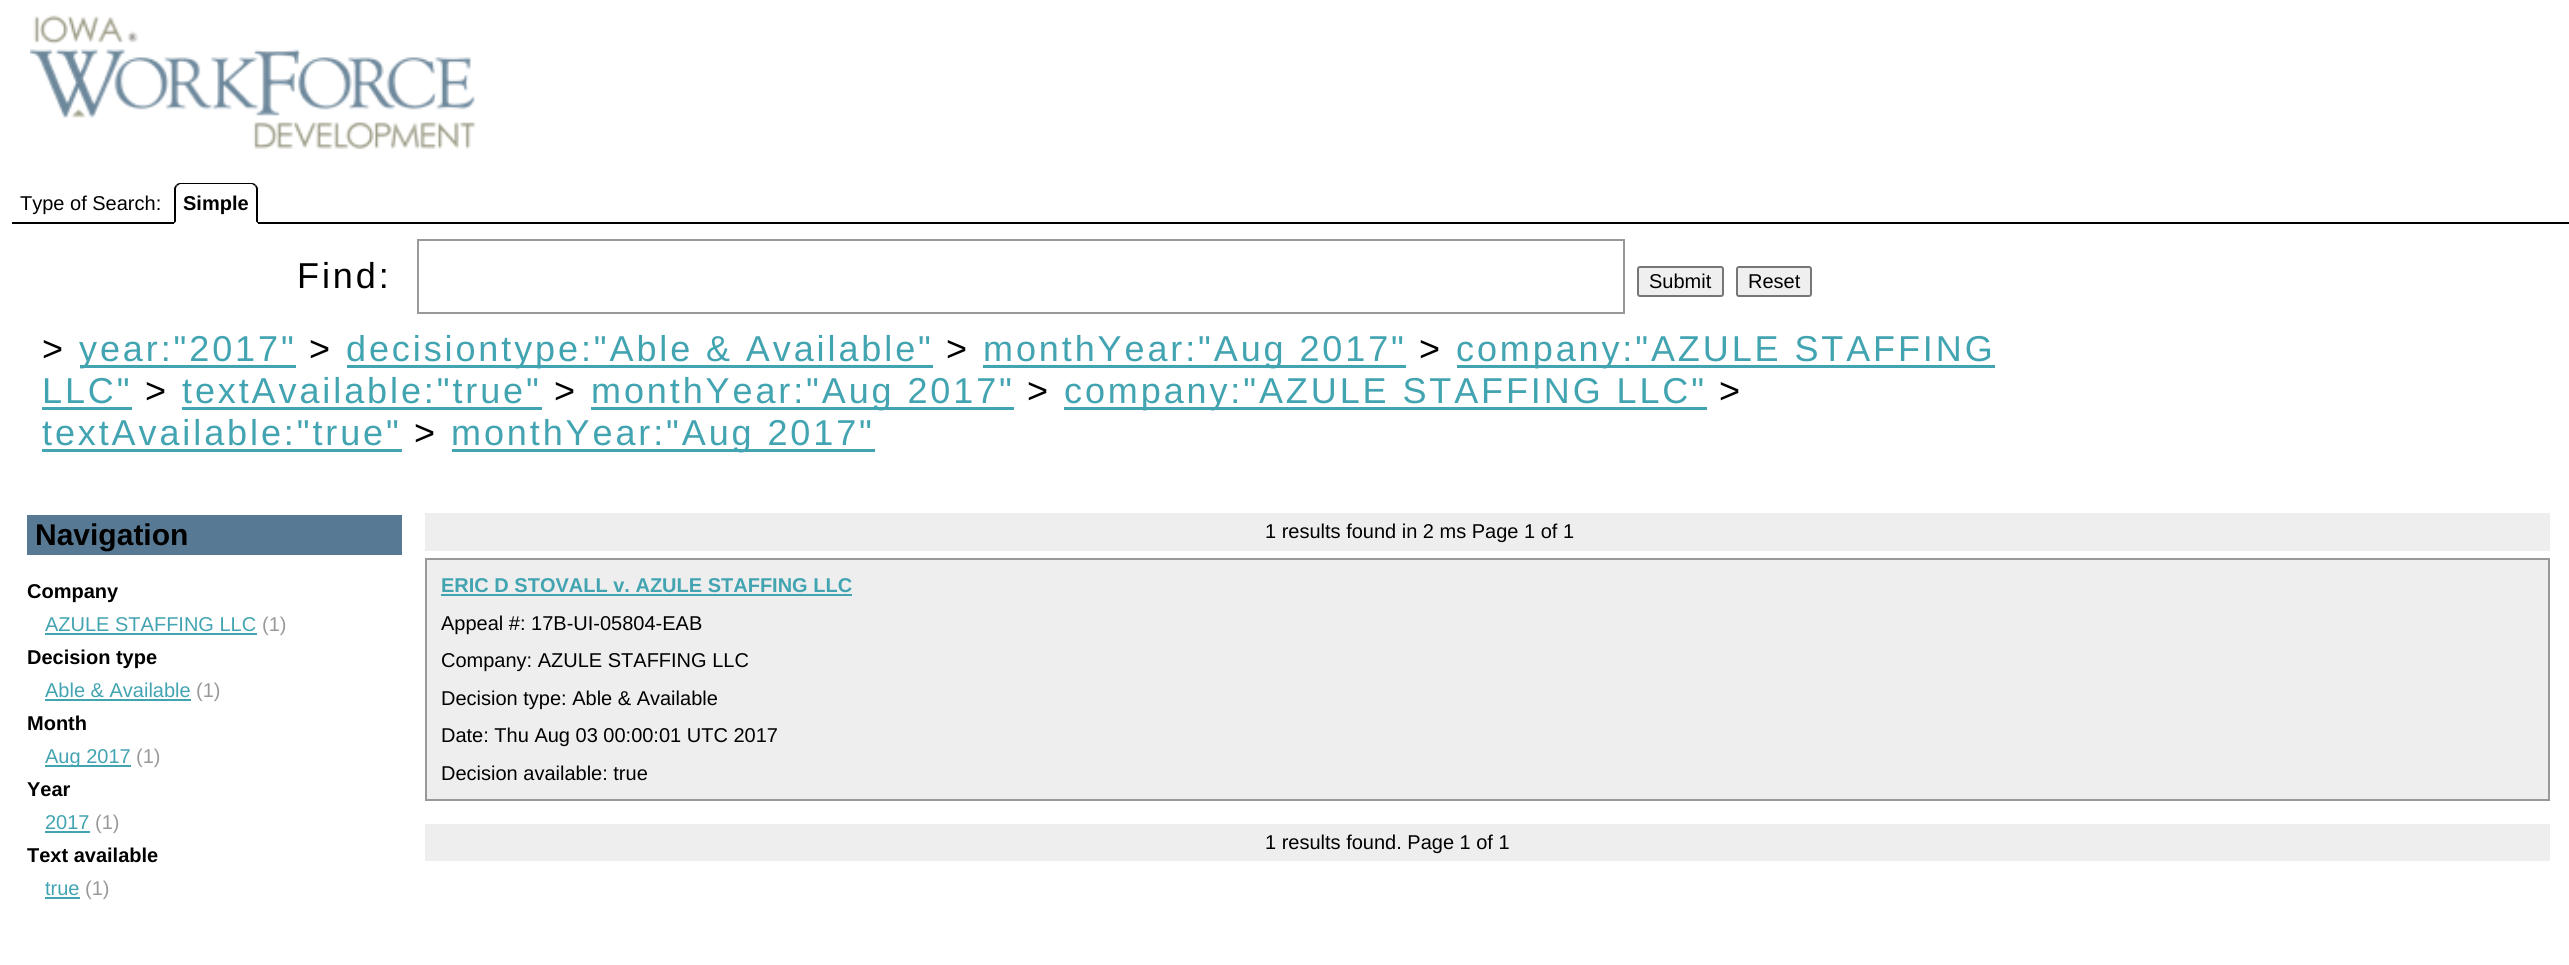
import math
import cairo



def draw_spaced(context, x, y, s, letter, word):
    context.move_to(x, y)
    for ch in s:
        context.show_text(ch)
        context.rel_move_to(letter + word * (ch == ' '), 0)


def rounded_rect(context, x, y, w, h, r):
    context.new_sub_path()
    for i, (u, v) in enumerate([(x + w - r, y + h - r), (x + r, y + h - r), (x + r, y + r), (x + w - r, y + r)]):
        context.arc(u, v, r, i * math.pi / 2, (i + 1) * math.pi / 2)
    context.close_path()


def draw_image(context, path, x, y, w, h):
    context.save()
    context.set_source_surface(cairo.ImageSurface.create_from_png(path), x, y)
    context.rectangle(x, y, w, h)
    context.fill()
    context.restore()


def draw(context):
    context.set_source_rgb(1, 1, 1)
    context.paint()
    draw_image(context, "images/1.png", 30, 15, 446, 135)
    context.set_source_rgb(0, 0, 0)
    context.rectangle(12, 222, 2557, 2)
    context.fill()
    context.set_source_rgb(1, 1, 1)
    context.new_path()
    context.move_to(180, 183)
    context.line_to(252, 183)
    context.curve_to(255.5, 183, 258, 185.5, 258, 189)
    context.line_to(258, 224)
    context.line_to(174, 224)
    context.line_to(174, 189)
    context.curve_to(174, 185.5, 176.5, 183, 180, 183)
    context.close_path()
    context.fill()
    context.set_source_rgb(0, 0, 0)
    context.new_path()
    context.move_to(180, 183)
    context.curve_to(178, 183, 177, 184, 176, 185)
    context.line_to(177, 186)
    context.line_to(180, 184)
    context.line_to(252, 184)
    context.line_to(255, 186)
    context.line_to(256, 185)
    context.curve_to(255, 184, 254, 183, 252, 183)
    context.close_path()
    context.fill()
    context.new_path()
    context.move_to(258, 223.5)
    context.line_to(258, 189)
    context.curve_to(258, 187.5, 257, 186, 256, 185)
    context.line_to(255, 186)
    context.curve_to(255.5, 187, 256, 188, 256, 189)
    context.line_to(256, 221.5)
    context.close_path()
    context.fill()
    context.set_source_rgb(1, 1, 1)
    context.new_path()
    context.move_to(258, 224)
    context.line_to(174, 224)
    context.line_to(176, 222)
    context.line_to(256, 222)
    context.close_path()
    context.fill()
    context.set_source_rgb(0, 0, 0)
    context.new_path()
    context.move_to(174, 223.5)
    context.line_to(176, 221.5)
    context.line_to(176, 189)
    context.curve_to(176, 188, 176.5, 187, 177, 186)
    context.line_to(176, 185)
    context.curve_to(175, 186, 174, 187.5, 174, 189)
    context.close_path()
    context.fill()
    context.rectangle(418, 240, 1206, 73)
    context.set_source_rgb(153 / 255, 153 / 255, 153 / 255)
    context.stroke()
    context.set_source_rgb(239 / 255, 239 / 255, 239 / 255)
    rounded_rect(context, 1638, 267, 85, 29, 2)
    context.fill_preserve()
    context.set_source_rgb(118 / 255, 118 / 255, 118 / 255)
    context.stroke()
    context.set_source_rgb(239 / 255, 239 / 255, 239 / 255)
    rounded_rect(context, 1737, 267, 74, 29, 2)
    context.fill_preserve()
    context.set_source_rgb(118 / 255, 118 / 255, 118 / 255)
    context.stroke()
    context.set_source_rgb(67 / 255, 164 / 255, 177 / 255)
    context.rectangle(80, 365, 216, 3)
    context.fill()
    context.rectangle(347, 365, 586, 3)
    context.fill()
    context.rectangle(983, 365, 423, 3)
    context.fill()
    context.rectangle(1457, 365, 538, 3)
    context.fill()
    context.rectangle(42, 407, 90, 3)
    context.fill()
    context.rectangle(182, 407, 360, 3)
    context.fill()
    context.rectangle(591, 407, 423, 3)
    context.fill()
    context.rectangle(1064, 407, 643, 3)
    context.fill()
    context.rectangle(42, 449, 360, 3)
    context.fill()
    context.rectangle(452, 449, 423, 3)
    context.fill()
    context.set_source_rgb(87 / 255, 121 / 255, 148 / 255)
    context.rectangle(27, 515, 375, 40)
    context.fill()
    context.set_source_rgb(67 / 255, 164 / 255, 177 / 255)
    context.rectangle(45, 633, 212, 2)
    context.fill()
    context.rectangle(45, 699, 146, 2)
    context.fill()
    context.rectangle(45, 765, 86, 2)
    context.fill()
    context.rectangle(45, 831, 45, 2)
    context.fill()
    context.rectangle(45, 897, 35, 2)
    context.fill()
    context.set_source_rgb(238 / 255, 238 / 255, 238 / 255)
    context.rectangle(425, 513, 2125, 38)
    context.fill()
    context.rectangle(426, 559, 2123, 241)
    context.fill_preserve()
    context.set_source_rgb(153 / 255, 153 / 255, 153 / 255)
    context.stroke()
    context.set_source_rgb(67 / 255, 164 / 255, 177 / 255)
    context.rectangle(441, 594, 411, 2)
    context.fill()
    context.set_source_rgb(238 / 255, 238 / 255, 238 / 255)
    context.rectangle(425, 824, 2125, 37)
    context.fill()
    context.select_font_face("Liberation Sans")
    context.set_font_size(20)
    context.set_source_rgb(0, 0, 0)
    context.move_to(20, 210)
    context.show_text("Type of Search:")
    context.select_font_face("Liberation Sans", cairo.FontSlant.NORMAL, cairo.FontWeight.BOLD)
    context.move_to(183, 210)
    context.show_text("Simple")
    context.select_font_face("Liberation Sans")
    context.set_font_size(36)
    draw_spaced(context, 297, 288, "Find:", 2.9, 0)
    context.set_font_size(20)
    context.move_to(1649, 288)
    context.show_text("Submit")
    context.move_to(1748, 288)
    context.show_text("Reset")
    context.set_font_size(36)
    draw_spaced(context, 42, 361, ">", 2.9, 0)
    context.set_source_rgb(67 / 255, 164 / 255, 177 / 255)
    draw_spaced(context, 79, 361, "year:\"2017\"", 2.9, 0)
    context.set_source_rgb(0, 0, 0)
    draw_spaced(context, 309, 361, ">", 2.9, 0)
    context.set_source_rgb(67 / 255, 164 / 255, 177 / 255)
    draw_spaced(context, 346, 361, "decisiontype:\"Able & Available\"", 2.9, 0)
    context.set_source_rgb(0, 0, 0)
    draw_spaced(context, 946, 361, ">", 2.9, 0)
    context.set_source_rgb(67 / 255, 164 / 255, 177 / 255)
    draw_spaced(context, 983, 361, "monthYear:\"Aug 2017\"", 2.9, 0)
    context.set_source_rgb(0, 0, 0)
    draw_spaced(context, 1419, 361, ">", 2.9, 0)
    context.set_source_rgb(67 / 255, 164 / 255, 177 / 255)
    draw_spaced(context, 1456, 361, "company:\"AZULE STAFFING", 2.9, 0)
    draw_spaced(context, 42, 403, "LLC\"", 2.9, 0)
    context.set_source_rgb(0, 0, 0)
    draw_spaced(context, 145, 403, ">", 2.9, 0)
    context.set_source_rgb(67 / 255, 164 / 255, 177 / 255)
    draw_spaced(context, 182, 403, "textAvailable:\"true\"", 2.9, 0)
    context.set_source_rgb(0, 0, 0)
    draw_spaced(context, 554, 403, ">", 2.9, 0)
    context.set_source_rgb(67 / 255, 164 / 255, 177 / 255)
    draw_spaced(context, 591, 403, "monthYear:\"Aug 2017\"", 2.9, 0)
    context.set_source_rgb(0, 0, 0)
    draw_spaced(context, 1027, 403, ">", 2.9, 0)
    context.set_source_rgb(67 / 255, 164 / 255, 177 / 255)
    draw_spaced(context, 1064, 403, "company:\"AZULE STAFFING LLC\"", 2.9, 0)
    context.set_source_rgb(0, 0, 0)
    draw_spaced(context, 1719, 403, ">", 2.9, 0)
    context.set_source_rgb(67 / 255, 164 / 255, 177 / 255)
    draw_spaced(context, 42, 445, "textAvailable:\"true\"", 2.9, 0)
    context.set_source_rgb(0, 0, 0)
    draw_spaced(context, 414, 445, ">", 2.9, 0)
    context.set_source_rgb(67 / 255, 164 / 255, 177 / 255)
    draw_spaced(context, 451, 445, "monthYear:\"Aug 2017\"", 2.9, 0)
    context.select_font_face("Liberation Sans", cairo.FontSlant.NORMAL, cairo.FontWeight.BOLD)
    context.set_font_size(30)
    context.set_source_rgb(0, 0, 0)
    context.move_to(35, 545)
    context.show_text("Navigation")
    context.set_font_size(20)
    context.move_to(27, 598)
    context.show_text("Company")
    context.select_font_face("Liberation Sans")
    context.set_source_rgb(67 / 255, 164 / 255, 177 / 255)
    context.move_to(45, 631)
    context.show_text("AZULE STAFFING LLC")
    context.set_source_rgb(153 / 255, 153 / 255, 153 / 255)
    context.move_to(262, 631)
    context.show_text("(1)")
    context.select_font_face("Liberation Sans", cairo.FontSlant.NORMAL, cairo.FontWeight.BOLD)
    context.set_source_rgb(0, 0, 0)
    context.move_to(27, 664)
    context.show_text("Decision type")
    context.select_font_face("Liberation Sans")
    context.set_source_rgb(67 / 255, 164 / 255, 177 / 255)
    context.move_to(45, 697)
    context.show_text("Able & Available")
    context.set_source_rgb(153 / 255, 153 / 255, 153 / 255)
    context.move_to(196, 697)
    context.show_text("(1)")
    context.select_font_face("Liberation Sans", cairo.FontSlant.NORMAL, cairo.FontWeight.BOLD)
    context.set_source_rgb(0, 0, 0)
    context.move_to(27, 730)
    context.show_text("Month")
    context.select_font_face("Liberation Sans")
    context.set_source_rgb(67 / 255, 164 / 255, 177 / 255)
    context.move_to(45, 763)
    context.show_text("Aug 2017")
    context.set_source_rgb(153 / 255, 153 / 255, 153 / 255)
    context.move_to(136, 763)
    context.show_text("(1)")
    context.select_font_face("Liberation Sans", cairo.FontSlant.NORMAL, cairo.FontWeight.BOLD)
    context.set_source_rgb(0, 0, 0)
    context.move_to(27, 796)
    context.show_text("Year")
    context.select_font_face("Liberation Sans")
    context.set_source_rgb(67 / 255, 164 / 255, 177 / 255)
    context.move_to(45, 829)
    context.show_text("2017")
    context.set_source_rgb(153 / 255, 153 / 255, 153 / 255)
    context.move_to(95, 829)
    context.show_text("(1)")
    context.select_font_face("Liberation Sans", cairo.FontSlant.NORMAL, cairo.FontWeight.BOLD)
    context.set_source_rgb(0, 0, 0)
    context.move_to(27, 862)
    context.show_text("Text available")
    context.select_font_face("Liberation Sans")
    context.set_source_rgb(67 / 255, 164 / 255, 177 / 255)
    context.move_to(45, 895)
    context.show_text("true")
    context.set_source_rgb(153 / 255, 153 / 255, 153 / 255)
    context.move_to(85, 895)
    context.show_text("(1)")
    context.set_source_rgb(0, 0, 0)
    context.move_to(1265, 538)
    context.show_text("1 results found in 2 ms Page 1 of 1")
    context.select_font_face("Liberation Sans", cairo.FontSlant.NORMAL, cairo.FontWeight.BOLD)
    context.set_source_rgb(67 / 255, 164 / 255, 177 / 255)
    context.move_to(441, 592)
    context.show_text("ERIC D STOVALL v. AZULE STAFFING LLC")
    context.select_font_face("Liberation Sans")
    context.set_source_rgb(0, 0, 0)
    context.move_to(441, 630)
    context.show_text("Appeal #: 17B-UI-05804-EAB")
    context.move_to(441, 667)
    context.show_text("Company: AZULE STAFFING LLC")
    context.move_to(441, 705)
    context.show_text("Decision type: Able & Available")
    context.move_to(441, 742)
    context.show_text("Date: Thu Aug 03 00:00:01 UTC 2017")
    context.move_to(441, 780)
    context.show_text("Decision available: true")
    context.move_to(1265, 849)
    context.show_text("1 results found. Page 1 of 1")


surface = cairo.ImageSurface(cairo.Format.RGB24, 2569, 965)
context = cairo.Context(surface)
options = cairo.FontOptions()
options.set_hint_metrics(cairo.HintMetrics.OFF)
options.set_hint_style(cairo.HintStyle.NONE)
context.set_font_options(options)
context.set_miter_limit(4)
draw(context)
surface.write_to_png("out.png")
